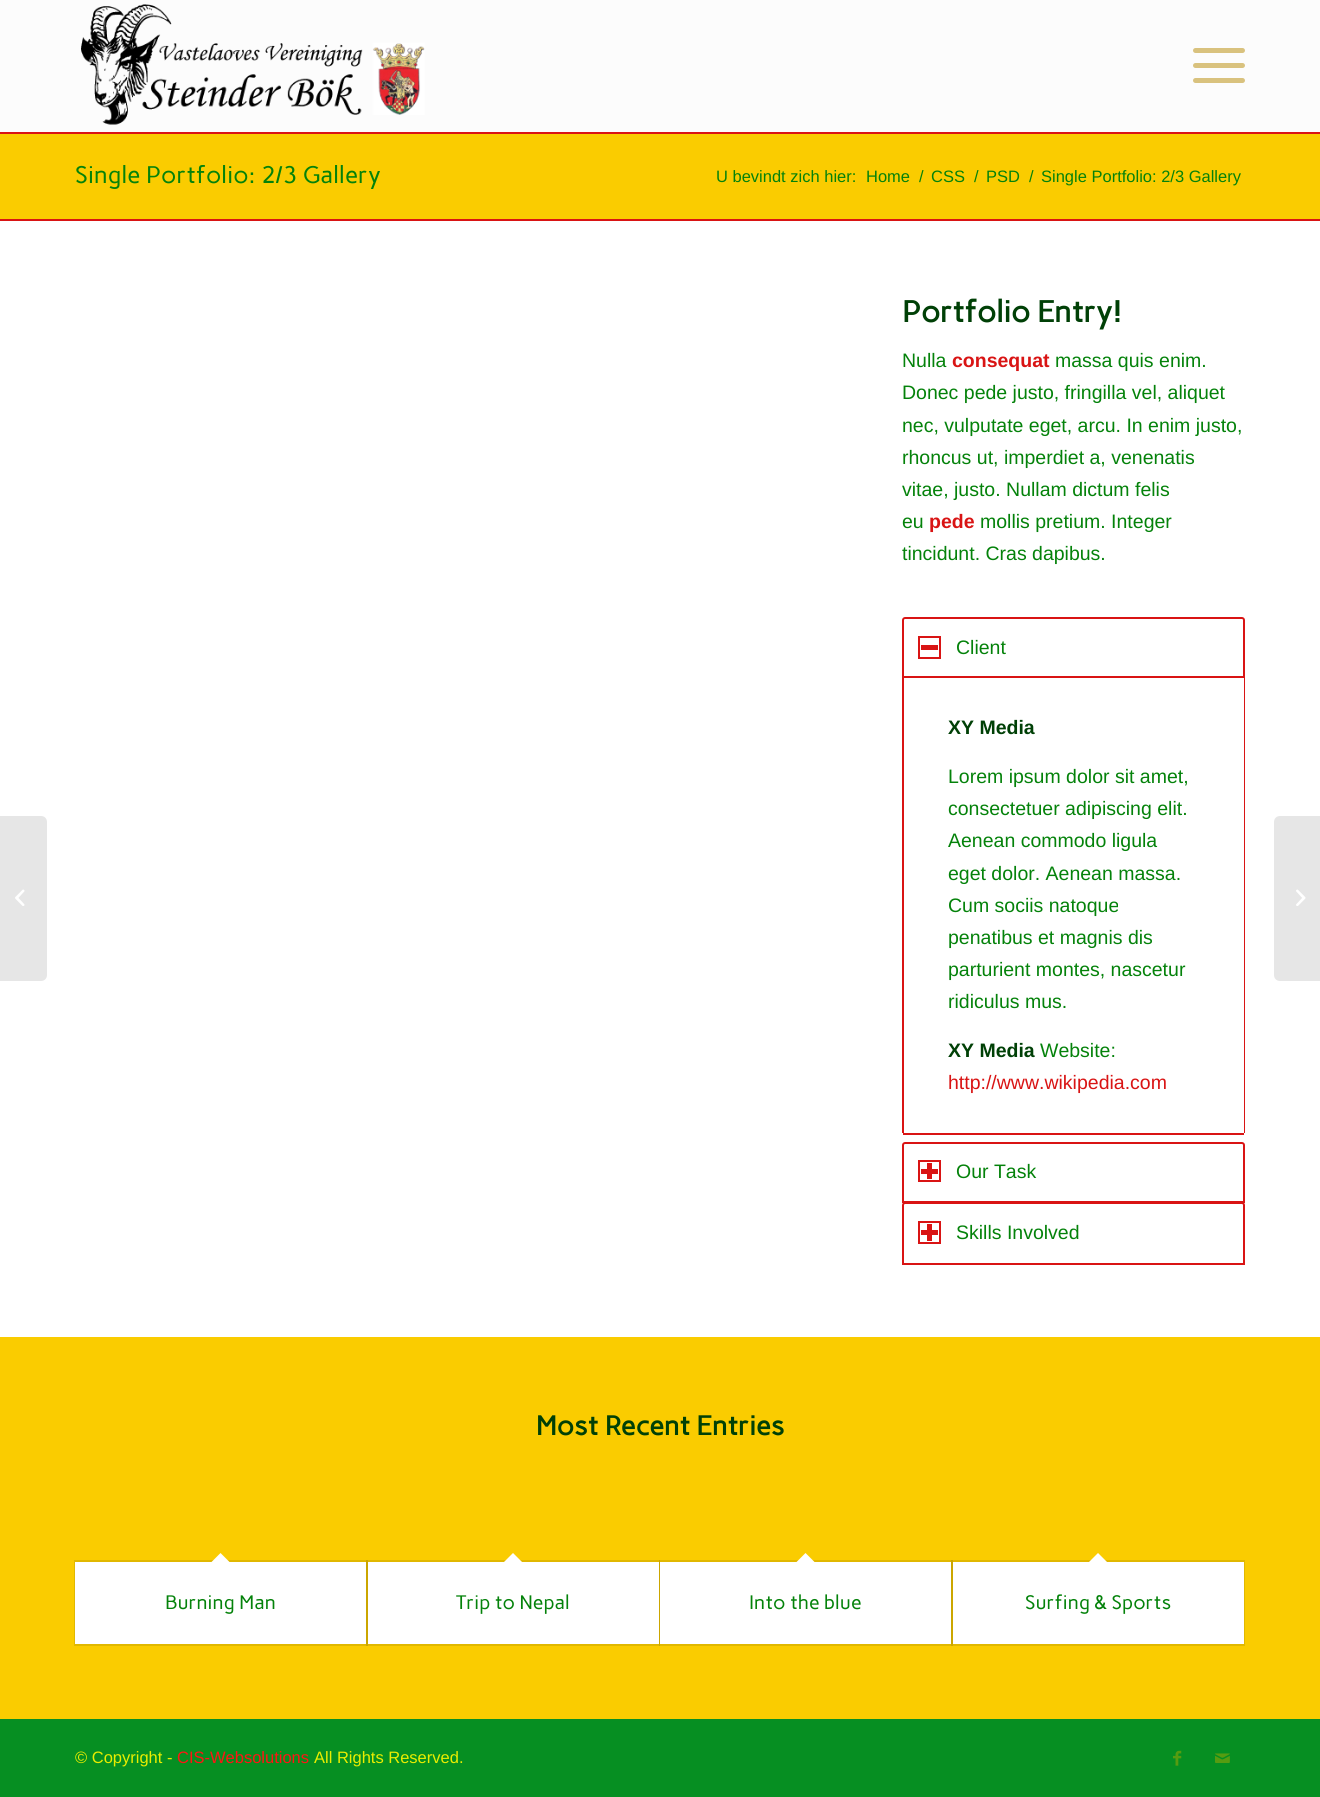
import math
import cairo



def rounded_rect(context, x, y, w, h, r):
    context.new_sub_path()
    for i, (u, v) in enumerate([(x + w - r, y + h - r), (x + r, y + h - r), (x + r, y + r), (x + w - r, y + r)]):
        context.arc(u, v, r, i * math.pi / 2, (i + 1) * math.pi / 2)
    context.close_path()


def draw_image(context, path, x, y, w, h):
    context.save()
    context.set_source_surface(cairo.ImageSurface.create_from_png(path), x, y)
    context.rectangle(x, y, w, h)
    context.fill()
    context.restore()


def draw(context):
    context.set_source_rgb(250 / 255, 204 / 255, 0)
    context.paint()
    context.set_source_rgb(252 / 255, 252 / 255, 252 / 255)
    context.rectangle(0, 0, 1320, 132)
    context.fill()
    context.set_source_rgb(217 / 255, 20 / 255, 20 / 255)
    context.rectangle(0, 132, 1320, 2)
    context.fill()
    draw_image(context, "images/1.png", 81, 4, 344, 121)
    context.set_source_rgb(217 / 255, 194 / 255, 126 / 255)
    rounded_rect(context, 1193, 63, 52, 5, 2.5)
    context.fill()
    rounded_rect(context, 1193, 48, 52, 5, 2.5)
    context.fill()
    rounded_rect(context, 1193, 78, 52, 5, 2.5)
    context.fill()
    context.set_source_rgb(1, 1, 1)
    context.rectangle(0, 221, 1320, 1116)
    context.fill()
    context.set_source_rgb(230 / 255, 230 / 255, 230 / 255)
    context.new_path()
    context.move_to(0, 816)
    context.line_to(41, 816)
    context.curve_to(44.5, 816, 47, 818.5, 47, 822)
    context.line_to(47, 975)
    context.curve_to(47, 978.5, 44.5, 981, 41, 981)
    context.line_to(0, 981)
    context.close_path()
    context.fill()
    draw_image(context, "images/2.png", 15, 889, 10, 17)
    context.set_source_rgb(217 / 255, 20 / 255, 20 / 255)
    context.rectangle(0, 219, 1320, 2)
    context.fill()
    context.rectangle(1244, 677, 1, 456)
    context.fill()
    context.rectangle(902, 677, 2, 456)
    context.fill()
    context.set_source_rgb(1, 1, 1)
    context.new_path()
    context.move_to(905, 618)
    context.line_to(1242, 618)
    context.curve_to(1243, 618, 1244, 619, 1244, 620)
    context.line_to(1244, 677)
    context.line_to(903, 677)
    context.line_to(903, 620)
    context.curve_to(903, 619, 904, 618, 905, 618)
    context.close_path()
    context.fill_preserve()
    context.set_source_rgb(217 / 255, 20 / 255, 20 / 255)
    context.stroke()
    context.rectangle(919, 637, 21, 21)
    context.stroke()
    context.rectangle(921, 645, 17, 5)
    context.fill()
    context.rectangle(903, 1133, 341, 2)
    context.fill()
    context.new_path()
    context.move_to(905, 1143)
    context.line_to(1242, 1143)
    context.curve_to(1243, 1143, 1244, 1144, 1244, 1145)
    context.line_to(1244, 1202)
    context.line_to(903, 1202)
    context.line_to(903, 1145)
    context.curve_to(903, 1144, 904, 1143, 905, 1143)
    context.close_path()
    context.stroke()
    context.rectangle(919, 1161, 21, 20)
    context.stroke()
    context.rectangle(927, 1163, 5, 16)
    context.fill()
    context.rectangle(921, 1169, 17, 5)
    context.fill()
    context.set_source_rgb(1, 1, 1)
    context.new_path()
    context.move_to(905, 1203)
    context.line_to(1242, 1203)
    context.curve_to(1243, 1203, 1244, 1204, 1244, 1205)
    context.line_to(1244, 1264)
    context.line_to(903, 1264)
    context.line_to(903, 1205)
    context.curve_to(903, 1204, 904, 1203, 905, 1203)
    context.close_path()
    context.fill_preserve()
    context.set_source_rgb(217 / 255, 20 / 255, 20 / 255)
    context.stroke()
    context.rectangle(919, 1222, 21, 21)
    context.stroke()
    context.rectangle(927, 1224, 5, 17)
    context.fill()
    context.rectangle(921, 1230, 17, 5)
    context.fill()
    context.rectangle(75, 1561, 292, 84)
    context.set_source_rgb(225 / 255, 184 / 255, 0)
    context.stroke()
    context.set_source_rgb(1, 1, 1)
    context.rectangle(75, 1562, 291, 82)
    context.fill()
    context.new_path()
    context.move_to(220.5, 1553)
    context.line_to(231, 1563.5)
    context.line_to(220.5, 1574)
    context.line_to(210, 1563.5)
    context.close_path()
    context.fill()
    context.rectangle(367, 1561, 292, 84)
    context.set_source_rgba(0, 0, 0, 0.1)
    context.stroke()
    context.set_source_rgb(1, 1, 1)
    context.rectangle(368, 1562, 291, 82)
    context.fill()
    context.new_path()
    context.move_to(513, 1553)
    context.line_to(523.5, 1563.5)
    context.line_to(513, 1574)
    context.line_to(502.5, 1563.5)
    context.close_path()
    context.fill()
    context.rectangle(660, 1561, 292, 84)
    context.set_source_rgba(0, 0, 0, 0.1)
    context.stroke()
    context.set_source_rgb(1, 1, 1)
    context.rectangle(660, 1562, 291, 82)
    context.fill()
    context.new_path()
    context.move_to(805.5, 1553)
    context.line_to(816, 1563.5)
    context.line_to(805.5, 1574)
    context.line_to(795, 1563.5)
    context.close_path()
    context.fill()
    context.rectangle(952, 1561, 292, 84)
    context.set_source_rgba(0, 0, 0, 0.1)
    context.stroke()
    context.set_source_rgb(1, 1, 1)
    context.rectangle(953, 1562, 291, 82)
    context.fill()
    context.new_path()
    context.move_to(1098, 1553)
    context.line_to(1108.5, 1563.5)
    context.line_to(1098, 1574)
    context.line_to(1087.5, 1563.5)
    context.close_path()
    context.fill()
    context.set_source_rgb(6 / 255, 143 / 255, 34 / 255)
    context.rectangle(0, 1719, 1320, 78)
    context.fill()
    draw_image(context, "images/3.png", 1173, 1750, 9, 16)
    draw_image(context, "images/4.png", 1215, 1753, 15, 10)
    context.set_source_rgb(230 / 255, 230 / 255, 230 / 255)
    context.new_path()
    context.move_to(1280, 816)
    context.line_to(1320, 816)
    context.line_to(1320, 981)
    context.line_to(1280, 981)
    context.curve_to(1276.5, 981, 1274, 978.5, 1274, 975)
    context.line_to(1274, 822)
    context.curve_to(1274, 818.5, 1276.5, 816, 1280, 816)
    context.close_path()
    context.fill()
    draw_image(context, "images/5.png", 1296, 889, 10, 17)
    context.select_font_face("Carme")
    context.set_font_size(24)
    context.set_source_rgb(4 / 255, 130 / 255, 10 / 255)
    context.move_to(75, 183)
    context.show_text("Single Portfolio: 2/3 Gallery")
    context.select_font_face("Liberation Sans")
    context.set_font_size(16.5)
    context.move_to(716, 182)
    context.show_text("U bevindt zich hier:")
    context.move_to(866, 182)
    context.show_text("Home")
    context.move_to(919, 182)
    context.show_text("/")
    context.move_to(931, 182)
    context.show_text("CSS")
    context.move_to(974, 182)
    context.show_text("/")
    context.move_to(986, 182)
    context.show_text("PSD")
    context.move_to(1029, 182)
    context.show_text("/")
    context.move_to(1041, 182)
    context.show_text("Single Portfolio: 2/3 Gallery")
    context.select_font_face("Carme", cairo.FontSlant.NORMAL, cairo.FontWeight.BOLD)
    context.set_font_size(30)
    context.set_source_rgb(0, 64 / 255, 6 / 255)
    context.move_to(902, 322)
    context.show_text("Portfolio Entry!")
    context.select_font_face("Liberation Sans")
    context.set_font_size(19.5)
    context.set_source_rgb(4 / 255, 130 / 255, 10 / 255)
    context.move_to(902, 367)
    context.show_text("Nulla")
    context.select_font_face("Liberation Sans", cairo.FontSlant.NORMAL, cairo.FontWeight.BOLD)
    context.set_source_rgb(217 / 255, 20 / 255, 20 / 255)
    context.move_to(952, 367)
    context.show_text("consequat")
    context.select_font_face("Liberation Sans")
    context.set_source_rgb(4 / 255, 130 / 255, 10 / 255)
    context.move_to(1055, 367)
    context.show_text("massa quis enim.")
    context.move_to(902, 399)
    context.show_text("Donec pede justo, fringilla vel, aliquet")
    context.move_to(902, 432)
    context.show_text("nec, vulputate eget, arcu. In enim justo,")
    context.move_to(902, 464)
    context.show_text("rhoncus ut, imperdiet a, venenatis")
    context.move_to(902, 496)
    context.show_text("vitae, justo. Nullam dictum felis")
    context.move_to(902, 528)
    context.show_text("eu")
    context.select_font_face("Liberation Sans", cairo.FontSlant.NORMAL, cairo.FontWeight.BOLD)
    context.set_source_rgb(217 / 255, 20 / 255, 20 / 255)
    context.move_to(929, 528)
    context.show_text("pede")
    context.select_font_face("Liberation Sans")
    context.set_source_rgb(4 / 255, 130 / 255, 10 / 255)
    context.move_to(980, 528)
    context.show_text("mollis pretium. Integer")
    context.move_to(902, 560)
    context.show_text("tincidunt. Cras dapibus.")
    context.move_to(956, 654)
    context.show_text("Client")
    context.select_font_face("Liberation Sans", cairo.FontSlant.NORMAL, cairo.FontWeight.BOLD)
    context.set_source_rgb(0, 64 / 255, 6 / 255)
    context.move_to(948, 734)
    context.show_text("XY Media")
    context.select_font_face("Liberation Sans")
    context.set_source_rgb(4 / 255, 130 / 255, 10 / 255)
    context.move_to(948, 783)
    context.show_text("Lorem ipsum dolor sit amet,")
    context.move_to(948, 815)
    context.show_text("consectetuer adipiscing elit.")
    context.move_to(948, 847)
    context.show_text("Aenean commodo ligula")
    context.move_to(948, 880)
    context.show_text("eget dolor. Aenean massa.")
    context.move_to(948, 912)
    context.show_text("Cum sociis natoque")
    context.move_to(948, 944)
    context.show_text("penatibus et magnis dis")
    context.move_to(948, 976)
    context.show_text("parturient montes, nascetur")
    context.move_to(948, 1008)
    context.show_text("ridiculus mus.")
    context.select_font_face("Liberation Sans", cairo.FontSlant.NORMAL, cairo.FontWeight.BOLD)
    context.set_source_rgb(0, 64 / 255, 6 / 255)
    context.move_to(948, 1057)
    context.show_text("XY Media")
    context.select_font_face("Liberation Sans")
    context.set_source_rgb(4 / 255, 130 / 255, 10 / 255)
    context.move_to(1040, 1057)
    context.show_text("Website:")
    context.set_source_rgb(217 / 255, 20 / 255, 20 / 255)
    context.move_to(948, 1089)
    context.show_text("http://www.wikipedia.com")
    context.set_source_rgb(4 / 255, 130 / 255, 10 / 255)
    context.move_to(956, 1178)
    context.show_text("Our Task")
    context.move_to(956, 1239)
    context.show_text("Skills Involved")
    context.select_font_face("Carme", cairo.FontSlant.NORMAL, cairo.FontWeight.BOLD)
    context.set_font_size(27)
    context.set_source_rgb(0, 64 / 255, 6 / 255)
    context.move_to(536, 1435)
    context.show_text("Most Recent Entries")
    context.select_font_face("Carme")
    context.set_font_size(19.5)
    context.set_source_rgb(4 / 255, 130 / 255, 10 / 255)
    context.move_to(165, 1609)
    context.show_text("Burning Man")
    context.move_to(456, 1609)
    context.show_text("Trip to Nepal")
    context.move_to(749, 1609)
    context.show_text("Into the blue")
    context.move_to(1025, 1609)
    context.show_text("Surfing & Sports")
    context.select_font_face("Liberation Sans")
    context.set_font_size(16.5)
    context.set_source_rgb(233 / 255, 237 / 255, 0)
    context.move_to(75, 1763)
    context.show_text("© Copyright -")
    context.set_source_rgb(1, 20 / 255, 20 / 255)
    context.move_to(177, 1763)
    context.show_text("CIS-Websolutions")
    context.set_source_rgb(233 / 255, 237 / 255, 0)
    context.move_to(314, 1763)
    context.show_text("All Rights Reserved.")


surface = cairo.ImageSurface(cairo.Format.RGB24, 1320, 1797)
context = cairo.Context(surface)
options = cairo.FontOptions()
options.set_hint_metrics(cairo.HintMetrics.OFF)
options.set_hint_style(cairo.HintStyle.NONE)
context.set_font_options(options)
context.set_miter_limit(4)
draw(context)
surface.write_to_png("out.png")
